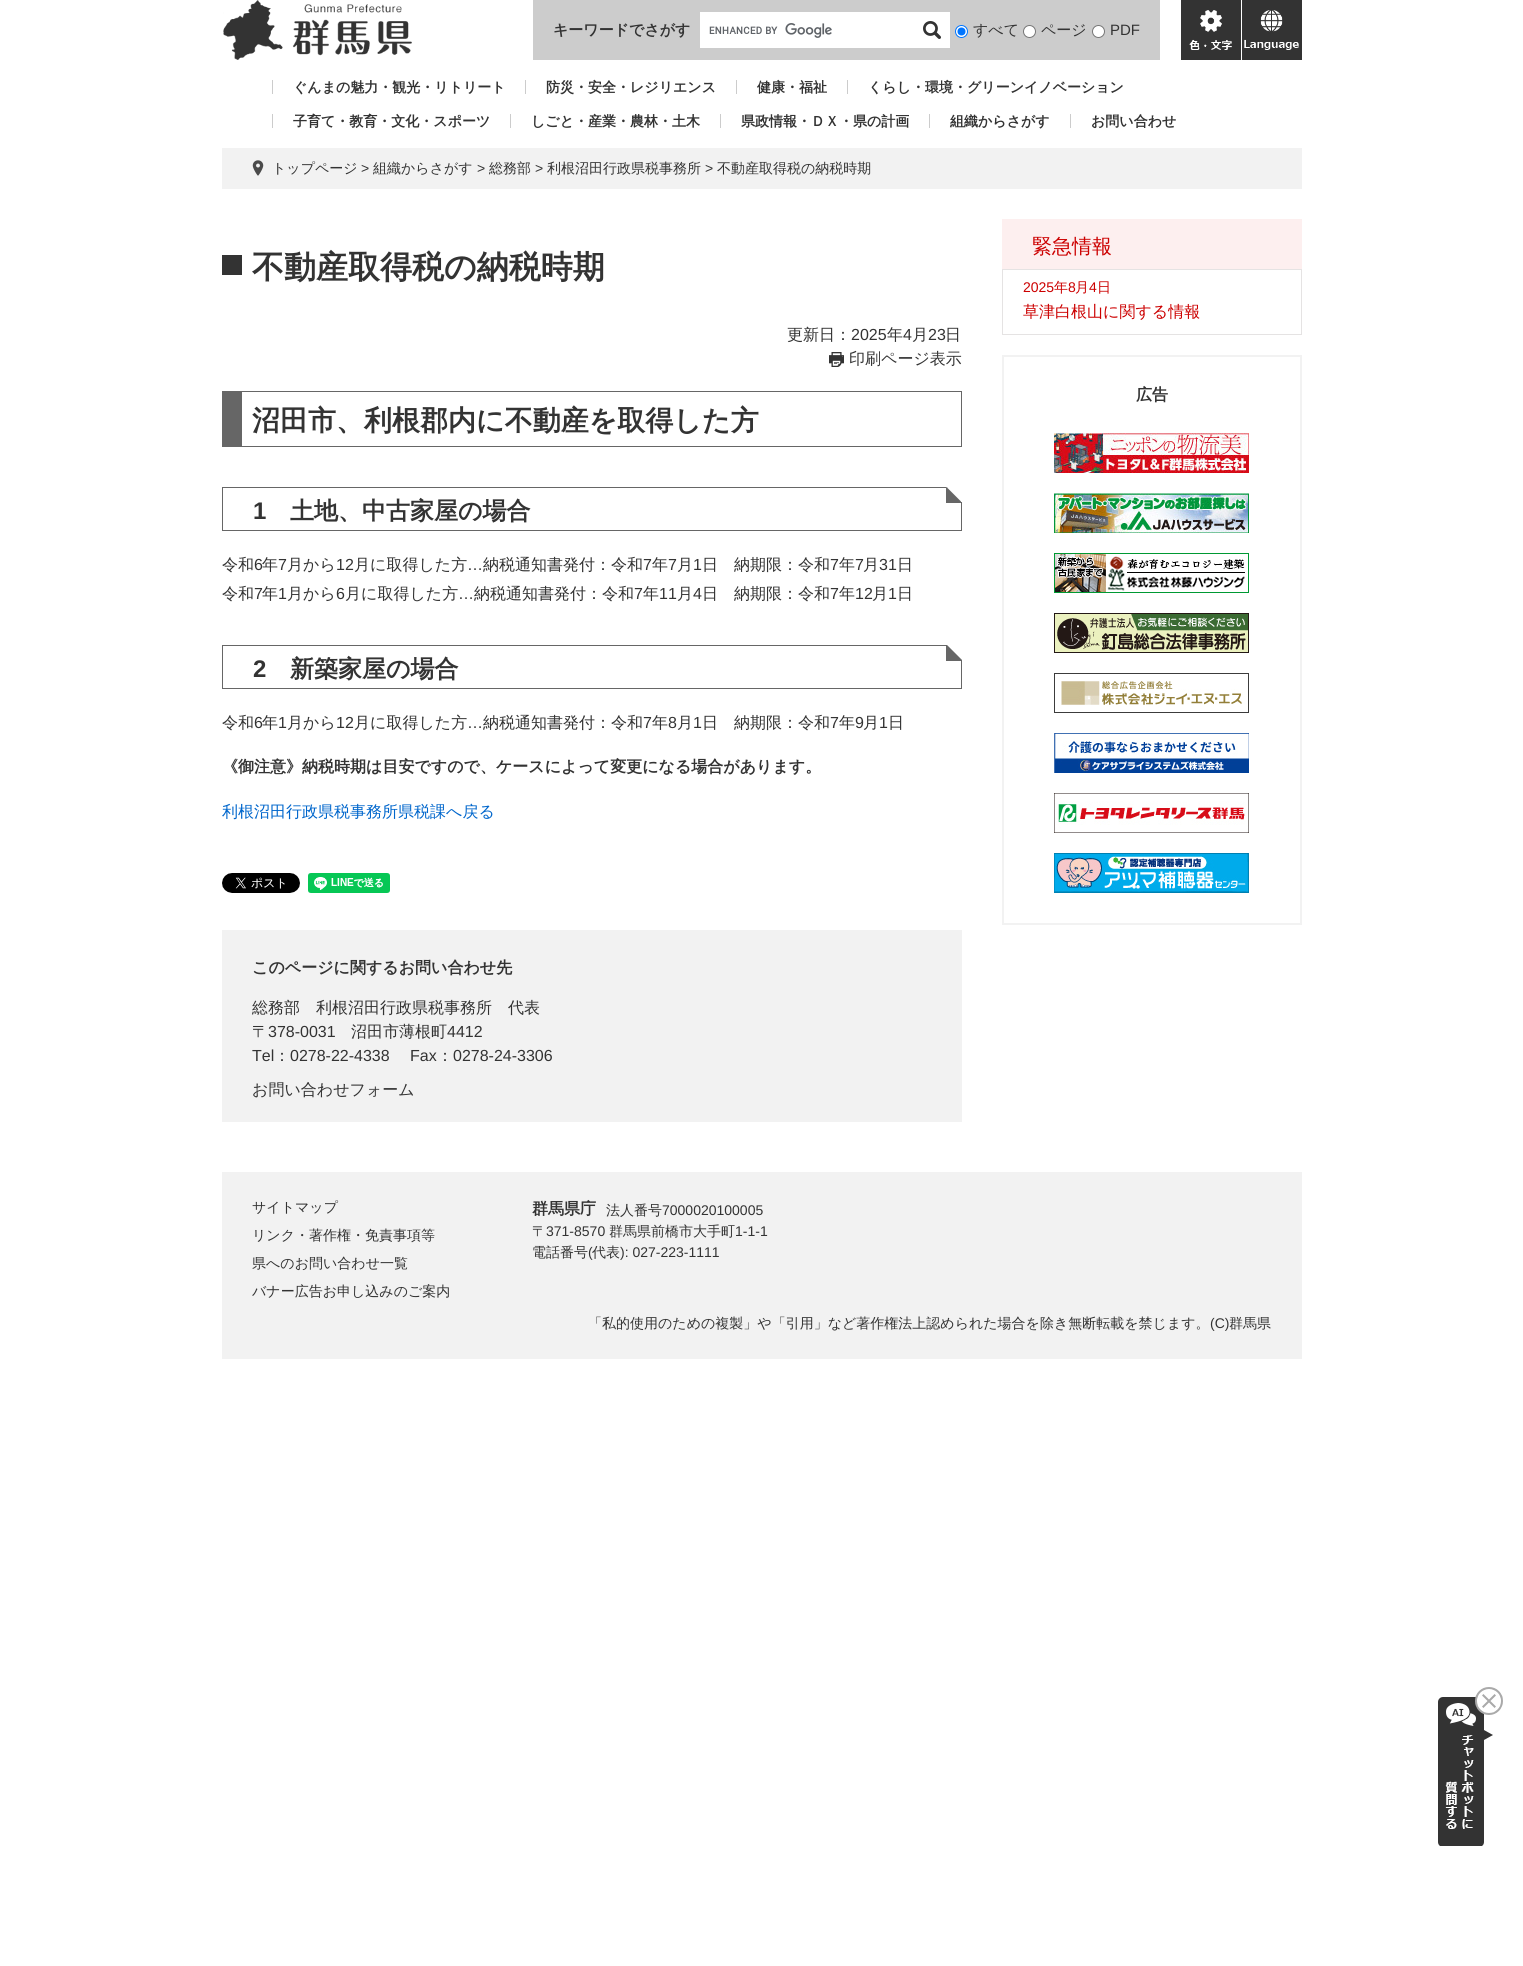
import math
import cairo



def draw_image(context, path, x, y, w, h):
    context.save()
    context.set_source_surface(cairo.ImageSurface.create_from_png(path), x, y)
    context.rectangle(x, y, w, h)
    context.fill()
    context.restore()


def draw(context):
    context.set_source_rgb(1, 1, 1)
    context.paint()
    draw_image(context, "images/1.png", 223, 0, 189, 60)
    context.set_source_rgb(204 / 255, 204 / 255, 204 / 255)
    context.rectangle(533, 0, 627, 60)
    context.fill()
    context.set_source_rgb(1, 1, 1)
    context.rectangle(700, 12, 250, 36)
    context.fill()
    draw_image(context, "images/2.png", 709, 23, 123, 15)
    draw_image(context, "images/3.png", 923, 21, 18, 18)
    context.arc(961.5, 31.5, 6, 0, 2 * math.pi)
    context.fill_preserve()
    context.set_source_rgb(0, 117 / 255, 1)
    context.set_line_width(1)
    context.stroke()
    context.arc(961.5, 31.5, 4, 0, 2 * math.pi)
    context.fill()
    context.set_source_rgb(1, 1, 1)
    context.arc(1029.5, 31.5, 6, 0, 2 * math.pi)
    context.fill_preserve()
    context.set_source_rgb(118 / 255, 118 / 255, 118 / 255)
    context.stroke()
    context.set_source_rgb(1, 1, 1)
    context.arc(1098.5, 31.5, 6, 0, 2 * math.pi)
    context.fill_preserve()
    context.set_source_rgb(118 / 255, 118 / 255, 118 / 255)
    context.stroke()
    context.set_source_rgb(51 / 255, 51 / 255, 51 / 255)
    context.rectangle(1181, 0, 60, 60)
    context.fill()
    draw_image(context, "images/4.png", 1189, 10, 43, 40)
    context.rectangle(1242, 0, 60, 60)
    context.fill()
    draw_image(context, "images/5.png", 1244, 10, 55, 40)
    context.set_source_rgb(204 / 255, 204 / 255, 204 / 255)
    context.rectangle(272, 80, 1, 14)
    context.fill()
    context.rectangle(525, 80, 1, 14)
    context.fill()
    context.rectangle(736, 80, 1, 14)
    context.fill()
    context.rectangle(847, 80, 1, 14)
    context.fill()
    context.rectangle(272, 114, 1, 14)
    context.fill()
    context.rectangle(510, 114, 1, 14)
    context.fill()
    context.rectangle(720, 114, 1, 14)
    context.fill()
    context.rectangle(929, 114, 1, 14)
    context.fill()
    context.rectangle(1070, 114, 1, 14)
    context.fill()
    context.set_source_rgb(242 / 255, 242 / 255, 242 / 255)
    context.rectangle(222, 148, 1080, 41)
    context.fill()
    draw_image(context, "images/6.png", 252, 160, 12, 16)
    context.set_source_rgb(51 / 255, 51 / 255, 51 / 255)
    context.rectangle(222, 255, 20, 20)
    context.fill()
    draw_image(context, "images/7.png", 829, 352, 15, 15)
    context.set_source_rgb(102 / 255, 102 / 255, 102 / 255)
    context.rectangle(242, 391, 720, 1)
    context.fill()
    context.rectangle(961, 391, 1, 56)
    context.fill()
    context.rectangle(242, 446, 720, 1)
    context.fill()
    context.rectangle(222, 391, 20, 56)
    context.fill()
    context.new_path()
    context.move_to(222, 487)
    context.line_to(222, 531)
    context.line_to(962, 531)
    context.line_to(962, 502)
    context.line_to(961, 502)
    context.line_to(961, 530)
    context.line_to(223, 530)
    context.line_to(223, 488)
    context.line_to(948, 488)
    context.line_to(946, 487)
    context.close_path()
    context.fill()
    context.new_path()
    context.move_to(946, 488)
    context.line_to(947.5, 488)
    context.line_to(961, 501.5)
    context.line_to(961, 503)
    context.line_to(946, 503)
    context.close_path()
    context.fill()
    context.new_path()
    context.move_to(222, 645)
    context.line_to(222, 689)
    context.line_to(962, 689)
    context.line_to(962, 660)
    context.line_to(961, 659)
    context.line_to(961, 688)
    context.line_to(223, 688)
    context.line_to(223, 646)
    context.line_to(948, 646)
    context.line_to(947, 645)
    context.close_path()
    context.fill()
    context.new_path()
    context.move_to(946, 646)
    context.line_to(948, 646)
    context.line_to(961, 659)
    context.line_to(961, 661)
    context.line_to(946, 661)
    context.close_path()
    context.fill()
    draw_image(context, "images/8.png", 222, 873, 78, 20)
    draw_image(context, "images/9.png", 308, 873, 82, 20)
    context.set_source_rgb(242 / 255, 242 / 255, 242 / 255)
    context.rectangle(222, 930, 740, 192)
    context.fill()
    context.set_source_rgb(253 / 255, 239 / 255, 239 / 255)
    context.rectangle(1002, 219, 300, 50)
    context.fill()
    context.rectangle(1002.5, 269.5, 299, 65)
    context.set_source_rgb(229 / 255, 227 / 255, 227 / 255)
    context.stroke()
    context.rectangle(1003, 356, 298, 568)
    context.set_source_rgb(242 / 255, 242 / 255, 242 / 255)
    context.set_line_width(2)
    context.stroke()
    draw_image(context, "images/10.png", 1054, 433, 195, 40)
    draw_image(context, "images/11.png", 1054, 493, 195, 40)
    draw_image(context, "images/12.png", 1054, 553, 195, 40)
    draw_image(context, "images/13.png", 1054, 613, 195, 40)
    draw_image(context, "images/14.png", 1054, 673, 195, 40)
    draw_image(context, "images/15.png", 1054, 733, 195, 40)
    draw_image(context, "images/16.png", 1054, 793, 195, 40)
    draw_image(context, "images/17.png", 1054, 853, 195, 40)
    context.rectangle(222, 1172, 1080, 187)
    context.fill()
    draw_image(context, "images/18.png", 1438, 1687, 65, 159)
    context.select_font_face("WenQuanYi Zen Hei", cairo.FontSlant.NORMAL, cairo.FontWeight.BOLD)
    context.set_font_size(15)
    context.set_source_rgb(51 / 255, 51 / 255, 51 / 255)
    context.move_to(553, 35)
    context.show_text("キーワードでさがす")
    context.select_font_face("WenQuanYi Zen Hei Medium")
    context.move_to(973, 35)
    context.show_text("すべて")
    context.move_to(1041, 35)
    context.show_text("ページ")
    context.select_font_face("Liberation Sans")
    context.move_to(1110, 35)
    context.show_text("PDF")
    context.select_font_face("WenQuanYi Zen Hei", cairo.FontSlant.NORMAL, cairo.FontWeight.BOLD)
    context.set_font_size(14)
    context.move_to(293, 92)
    context.show_text("ぐんまの魅力・観光・リトリート")
    context.move_to(546, 92)
    context.show_text("防災・安全・レジリエンス")
    context.move_to(757, 92)
    context.show_text("健康・福祉")
    context.move_to(868, 92)
    context.show_text("くらし・環境・グリーンイノベーション")
    context.move_to(293, 126)
    context.show_text("子育て・教育・文化・スポーツ")
    context.move_to(531, 126)
    context.show_text("しごと・産業・農林・土木")
    context.move_to(741, 126)
    context.show_text("県政情報・ＤＸ・県の計画")
    context.move_to(950, 126)
    context.show_text("組織からさがす")
    context.move_to(1091, 126)
    context.show_text("お問い合わせ")
    context.select_font_face("WenQuanYi Zen Hei Medium")
    context.move_to(272, 173)
    context.show_text("トップページ")
    context.select_font_face("Liberation Sans")
    context.move_to(361, 173)
    context.show_text(">")
    context.select_font_face("WenQuanYi Zen Hei Medium")
    context.move_to(373, 173)
    context.show_text("組織からさがす")
    context.select_font_face("Liberation Sans")
    context.move_to(477, 173)
    context.show_text(">")
    context.select_font_face("WenQuanYi Zen Hei Medium")
    context.move_to(489, 173)
    context.show_text("総務部")
    context.select_font_face("Liberation Sans")
    context.move_to(535, 173)
    context.show_text(">")
    context.select_font_face("WenQuanYi Zen Hei Medium")
    context.move_to(547, 173)
    context.show_text("利根沼田行政県税事務所")
    context.select_font_face("Liberation Sans")
    context.move_to(705, 173)
    context.show_text(">")
    context.select_font_face("WenQuanYi Zen Hei Medium")
    context.move_to(717, 173)
    context.show_text("不動産取得税の納税時期")
    context.select_font_face("WenQuanYi Zen Hei", cairo.FontSlant.NORMAL, cairo.FontWeight.BOLD)
    context.set_font_size(32)
    context.move_to(252, 278)
    context.show_text("不動産取得税の納税時期")
    context.select_font_face("WenQuanYi Zen Hei Medium")
    context.set_font_size(16)
    context.move_to(787, 340)
    context.show_text("更新日：")
    context.select_font_face("Liberation Sans")
    context.move_to(851, 340)
    context.show_text("2025")
    context.select_font_face("WenQuanYi Zen Hei Medium")
    context.move_to(887, 340)
    context.show_text("年")
    context.select_font_face("Liberation Sans")
    context.move_to(903, 340)
    context.show_text("4")
    context.select_font_face("WenQuanYi Zen Hei Medium")
    context.move_to(912, 340)
    context.show_text("月")
    context.select_font_face("Liberation Sans")
    context.move_to(928, 340)
    context.show_text("23")
    context.select_font_face("WenQuanYi Zen Hei Medium")
    context.move_to(945, 340)
    context.show_text("日")
    context.move_to(849, 364)
    context.show_text("印刷ページ表示")
    context.select_font_face("WenQuanYi Zen Hei", cairo.FontSlant.NORMAL, cairo.FontWeight.BOLD)
    context.set_font_size(28)
    context.move_to(252, 430)
    context.show_text("沼田市、利根郡内に不動産を取得した方")
    context.select_font_face("Liberation Sans", cairo.FontSlant.NORMAL, cairo.FontWeight.BOLD)
    context.set_font_size(24)
    context.move_to(253, 519)
    context.show_text("1")
    context.select_font_face("WenQuanYi Zen Hei", cairo.FontSlant.NORMAL, cairo.FontWeight.BOLD)
    context.move_to(290, 519)
    context.show_text("土地、中古家屋の場合")
    context.select_font_face("WenQuanYi Zen Hei Medium")
    context.set_font_size(16)
    context.move_to(222, 570)
    context.show_text("令和")
    context.select_font_face("Liberation Sans")
    context.move_to(254, 570)
    context.show_text("6")
    context.select_font_face("WenQuanYi Zen Hei Medium")
    context.move_to(262, 570)
    context.show_text("年")
    context.select_font_face("Liberation Sans")
    context.move_to(278, 570)
    context.show_text("7")
    context.select_font_face("WenQuanYi Zen Hei Medium")
    context.move_to(287, 570)
    context.show_text("月から")
    context.select_font_face("Liberation Sans")
    context.move_to(336, 570)
    context.show_text("12")
    context.select_font_face("WenQuanYi Zen Hei Medium")
    context.move_to(354, 570)
    context.show_text("月に取得した方")
    context.select_font_face("Liberation Sans")
    context.move_to(467, 570)
    context.show_text("…")
    context.select_font_face("WenQuanYi Zen Hei Medium")
    context.move_to(483, 570)
    context.show_text("納税通知書発付：令和")
    context.select_font_face("Liberation Sans")
    context.move_to(643, 570)
    context.show_text("7")
    context.select_font_face("WenQuanYi Zen Hei Medium")
    context.move_to(652, 570)
    context.show_text("年")
    context.select_font_face("Liberation Sans")
    context.move_to(668, 570)
    context.show_text("7")
    context.select_font_face("WenQuanYi Zen Hei Medium")
    context.move_to(677, 570)
    context.show_text("月")
    context.select_font_face("Liberation Sans")
    context.move_to(693, 570)
    context.show_text("1")
    context.select_font_face("WenQuanYi Zen Hei Medium")
    context.move_to(702, 570)
    context.show_text("日　納期限：令和")
    context.select_font_face("Liberation Sans")
    context.move_to(830, 570)
    context.show_text("7")
    context.select_font_face("WenQuanYi Zen Hei Medium")
    context.move_to(839, 570)
    context.show_text("年")
    context.select_font_face("Liberation Sans")
    context.move_to(855, 570)
    context.show_text("7")
    context.select_font_face("WenQuanYi Zen Hei Medium")
    context.move_to(863, 570)
    context.show_text("月")
    context.select_font_face("Liberation Sans")
    context.move_to(879, 570)
    context.show_text("31")
    context.select_font_face("WenQuanYi Zen Hei Medium")
    context.move_to(897, 570)
    context.show_text("日")
    context.move_to(222, 599)
    context.show_text("令和")
    context.select_font_face("Liberation Sans")
    context.move_to(254, 599)
    context.show_text("7")
    context.select_font_face("WenQuanYi Zen Hei Medium")
    context.move_to(262, 599)
    context.show_text("年")
    context.select_font_face("Liberation Sans")
    context.move_to(278, 599)
    context.show_text("1")
    context.select_font_face("WenQuanYi Zen Hei Medium")
    context.move_to(287, 599)
    context.show_text("月から")
    context.select_font_face("Liberation Sans")
    context.move_to(336, 599)
    context.show_text("6")
    context.select_font_face("WenQuanYi Zen Hei Medium")
    context.move_to(345, 599)
    context.show_text("月に取得した方")
    context.select_font_face("Liberation Sans")
    context.move_to(458, 599)
    context.show_text("…")
    context.select_font_face("WenQuanYi Zen Hei Medium")
    context.move_to(474, 599)
    context.show_text("納税通知書発付：令和")
    context.select_font_face("Liberation Sans")
    context.move_to(634, 599)
    context.show_text("7")
    context.select_font_face("WenQuanYi Zen Hei Medium")
    context.move_to(643, 599)
    context.show_text("年")
    context.select_font_face("Liberation Sans")
    context.move_to(659, 599)
    context.show_text("11")
    context.select_font_face("WenQuanYi Zen Hei Medium")
    context.move_to(677, 599)
    context.show_text("月")
    context.select_font_face("Liberation Sans")
    context.move_to(693, 599)
    context.show_text("4")
    context.select_font_face("WenQuanYi Zen Hei Medium")
    context.move_to(702, 599)
    context.show_text("日　納期限：令和")
    context.select_font_face("Liberation Sans")
    context.move_to(830, 599)
    context.show_text("7")
    context.select_font_face("WenQuanYi Zen Hei Medium")
    context.move_to(839, 599)
    context.show_text("年")
    context.select_font_face("Liberation Sans")
    context.move_to(855, 599)
    context.show_text("12")
    context.select_font_face("WenQuanYi Zen Hei Medium")
    context.move_to(872, 599)
    context.show_text("月")
    context.select_font_face("Liberation Sans")
    context.move_to(888, 599)
    context.show_text("1")
    context.select_font_face("WenQuanYi Zen Hei Medium")
    context.move_to(897, 599)
    context.show_text("日")
    context.select_font_face("Liberation Sans", cairo.FontSlant.NORMAL, cairo.FontWeight.BOLD)
    context.set_font_size(24)
    context.move_to(253, 677)
    context.show_text("2")
    context.select_font_face("WenQuanYi Zen Hei", cairo.FontSlant.NORMAL, cairo.FontWeight.BOLD)
    context.move_to(290, 677)
    context.show_text("新築家屋の場合")
    context.select_font_face("WenQuanYi Zen Hei Medium")
    context.set_font_size(16)
    context.move_to(222, 728)
    context.show_text("令和")
    context.select_font_face("Liberation Sans")
    context.move_to(254, 728)
    context.show_text("6")
    context.select_font_face("WenQuanYi Zen Hei Medium")
    context.move_to(262, 728)
    context.show_text("年")
    context.select_font_face("Liberation Sans")
    context.move_to(278, 728)
    context.show_text("1")
    context.select_font_face("WenQuanYi Zen Hei Medium")
    context.move_to(287, 728)
    context.show_text("月から")
    context.select_font_face("Liberation Sans")
    context.move_to(336, 728)
    context.show_text("12")
    context.select_font_face("WenQuanYi Zen Hei Medium")
    context.move_to(354, 728)
    context.show_text("月に取得した方")
    context.select_font_face("Liberation Sans")
    context.move_to(467, 728)
    context.show_text("…")
    context.select_font_face("WenQuanYi Zen Hei Medium")
    context.move_to(483, 728)
    context.show_text("納税通知書発付：令和")
    context.select_font_face("Liberation Sans")
    context.move_to(643, 728)
    context.show_text("7")
    context.select_font_face("WenQuanYi Zen Hei Medium")
    context.move_to(652, 728)
    context.show_text("年")
    context.select_font_face("Liberation Sans")
    context.move_to(668, 728)
    context.show_text("8")
    context.select_font_face("WenQuanYi Zen Hei Medium")
    context.move_to(677, 728)
    context.show_text("月")
    context.select_font_face("Liberation Sans")
    context.move_to(693, 728)
    context.show_text("1")
    context.select_font_face("WenQuanYi Zen Hei Medium")
    context.move_to(702, 728)
    context.show_text("日　納期限：令和")
    context.select_font_face("Liberation Sans")
    context.move_to(830, 728)
    context.show_text("7")
    context.select_font_face("WenQuanYi Zen Hei Medium")
    context.move_to(839, 728)
    context.show_text("年")
    context.select_font_face("Liberation Sans")
    context.move_to(855, 728)
    context.show_text("9")
    context.select_font_face("WenQuanYi Zen Hei Medium")
    context.move_to(863, 728)
    context.show_text("月")
    context.select_font_face("Liberation Sans")
    context.move_to(879, 728)
    context.show_text("1")
    context.select_font_face("WenQuanYi Zen Hei Medium")
    context.move_to(888, 728)
    context.show_text("日")
    context.select_font_face("WenQuanYi Zen Hei", cairo.FontSlant.NORMAL, cairo.FontWeight.BOLD)
    context.move_to(222, 772)
    context.show_text("《御注意》納税時期は目安ですので、ケースによって変更になる場合があります。")
    context.select_font_face("WenQuanYi Zen Hei Medium")
    context.set_source_rgb(0, 102 / 255, 204 / 255)
    context.move_to(222, 817)
    context.show_text("利根沼田行政県税事務所県税課へ戻る")
    context.select_font_face("WenQuanYi Zen Hei", cairo.FontSlant.NORMAL, cairo.FontWeight.BOLD)
    context.set_source_rgb(51 / 255, 51 / 255, 51 / 255)
    context.move_to(252, 973)
    context.show_text("このページに関するお問い合わせ先")
    context.select_font_face("WenQuanYi Zen Hei Medium")
    context.move_to(252, 1013)
    context.show_text("総務部")
    context.move_to(316, 1013)
    context.show_text("利根沼田行政県税事務所")
    context.move_to(508, 1013)
    context.show_text("代表")
    context.move_to(252, 1037)
    context.show_text("〒")
    context.select_font_face("Liberation Sans")
    context.move_to(268, 1037)
    context.show_text("378-0031")
    context.select_font_face("WenQuanYi Zen Hei Medium")
    context.move_to(351, 1037)
    context.show_text("沼田市薄根町")
    context.select_font_face("Liberation Sans")
    context.move_to(447, 1037)
    context.show_text("4412")
    context.move_to(252, 1061)
    context.show_text("Tel")
    context.select_font_face("WenQuanYi Zen Hei Medium")
    context.move_to(274, 1061)
    context.show_text("：")
    context.select_font_face("Liberation Sans")
    context.move_to(290, 1061)
    context.show_text("0278-22-4338")
    context.move_to(410, 1061)
    context.show_text("Fax")
    context.select_font_face("WenQuanYi Zen Hei Medium")
    context.move_to(437, 1061)
    context.show_text("：")
    context.select_font_face("Liberation Sans")
    context.move_to(453, 1061)
    context.show_text("0278-24-3306")
    context.select_font_face("WenQuanYi Zen Hei Medium")
    context.move_to(252, 1095)
    context.show_text("お問い合わせフォーム")
    context.set_font_size(20)
    context.set_source_rgb(204 / 255, 0, 0)
    context.move_to(1032, 253)
    context.show_text("緊急情報")
    context.select_font_face("Liberation Sans")
    context.set_font_size(14)
    context.move_to(1023, 292)
    context.show_text("2025")
    context.select_font_face("WenQuanYi Zen Hei Medium")
    context.move_to(1054, 292)
    context.show_text("年")
    context.select_font_face("Liberation Sans")
    context.move_to(1068, 292)
    context.show_text("8")
    context.select_font_face("WenQuanYi Zen Hei Medium")
    context.move_to(1075, 292)
    context.show_text("月")
    context.select_font_face("Liberation Sans")
    context.move_to(1089, 292)
    context.show_text("4")
    context.select_font_face("WenQuanYi Zen Hei Medium")
    context.move_to(1097, 292)
    context.show_text("日")
    context.set_font_size(16)
    context.move_to(1023, 317)
    context.show_text("草津白根山に関する情報")
    context.select_font_face("WenQuanYi Zen Hei", cairo.FontSlant.NORMAL, cairo.FontWeight.BOLD)
    context.set_source_rgb(51 / 255, 51 / 255, 51 / 255)
    context.move_to(1136, 400)
    context.show_text("広告")
    context.select_font_face("WenQuanYi Zen Hei Medium")
    context.set_font_size(14)
    context.move_to(252, 1212)
    context.show_text("サイトマップ")
    context.move_to(252, 1240)
    context.show_text("リンク・著作権・免責事項等")
    context.move_to(252, 1268)
    context.show_text("県へのお問い合わせ一覧")
    context.move_to(252, 1296)
    context.show_text("バナー広告お申し込みのご案内")
    context.select_font_face("WenQuanYi Zen Hei", cairo.FontSlant.NORMAL, cairo.FontWeight.BOLD)
    context.set_font_size(16)
    context.move_to(532, 1214)
    context.show_text("群馬県庁")
    context.select_font_face("WenQuanYi Zen Hei Medium")
    context.set_font_size(14)
    context.move_to(606, 1215)
    context.show_text("法人番号")
    context.select_font_face("Liberation Sans")
    context.move_to(662, 1215)
    context.show_text("7000020100005")
    context.select_font_face("WenQuanYi Zen Hei Medium")
    context.move_to(532, 1236)
    context.show_text("〒")
    context.select_font_face("Liberation Sans")
    context.move_to(546, 1236)
    context.show_text("371-8570")
    context.select_font_face("WenQuanYi Zen Hei Medium")
    context.move_to(609, 1236)
    context.show_text("群馬県前橋市大手町")
    context.select_font_face("Liberation Sans")
    context.move_to(735, 1236)
    context.show_text("1-1-1")
    context.select_font_face("WenQuanYi Zen Hei Medium")
    context.move_to(532, 1257)
    context.show_text("電話番号")
    context.select_font_face("Liberation Sans")
    context.move_to(588, 1257)
    context.show_text("(")
    context.select_font_face("WenQuanYi Zen Hei Medium")
    context.move_to(592, 1257)
    context.show_text("代表")
    context.select_font_face("Liberation Sans")
    context.move_to(620, 1257)
    context.show_text("): 027-223-1111")
    context.select_font_face("WenQuanYi Zen Hei Medium")
    context.move_to(588, 1328)
    context.show_text("「私的使用のための複製」や「引用」など著作権法上認められた場合を除き無断転載を禁じます。")
    context.select_font_face("Liberation Sans")
    context.move_to(1210, 1328)
    context.show_text("(C)")
    context.select_font_face("WenQuanYi Zen Hei Medium")
    context.move_to(1229, 1328)
    context.show_text("群馬県")


surface = cairo.ImageSurface(cairo.Format.RGB24, 1523, 1966)
context = cairo.Context(surface)
options = cairo.FontOptions()
options.set_hint_metrics(cairo.HintMetrics.OFF)
options.set_hint_style(cairo.HintStyle.NONE)
context.set_font_options(options)
context.set_miter_limit(4)
draw(context)
surface.write_to_png("out.png")
